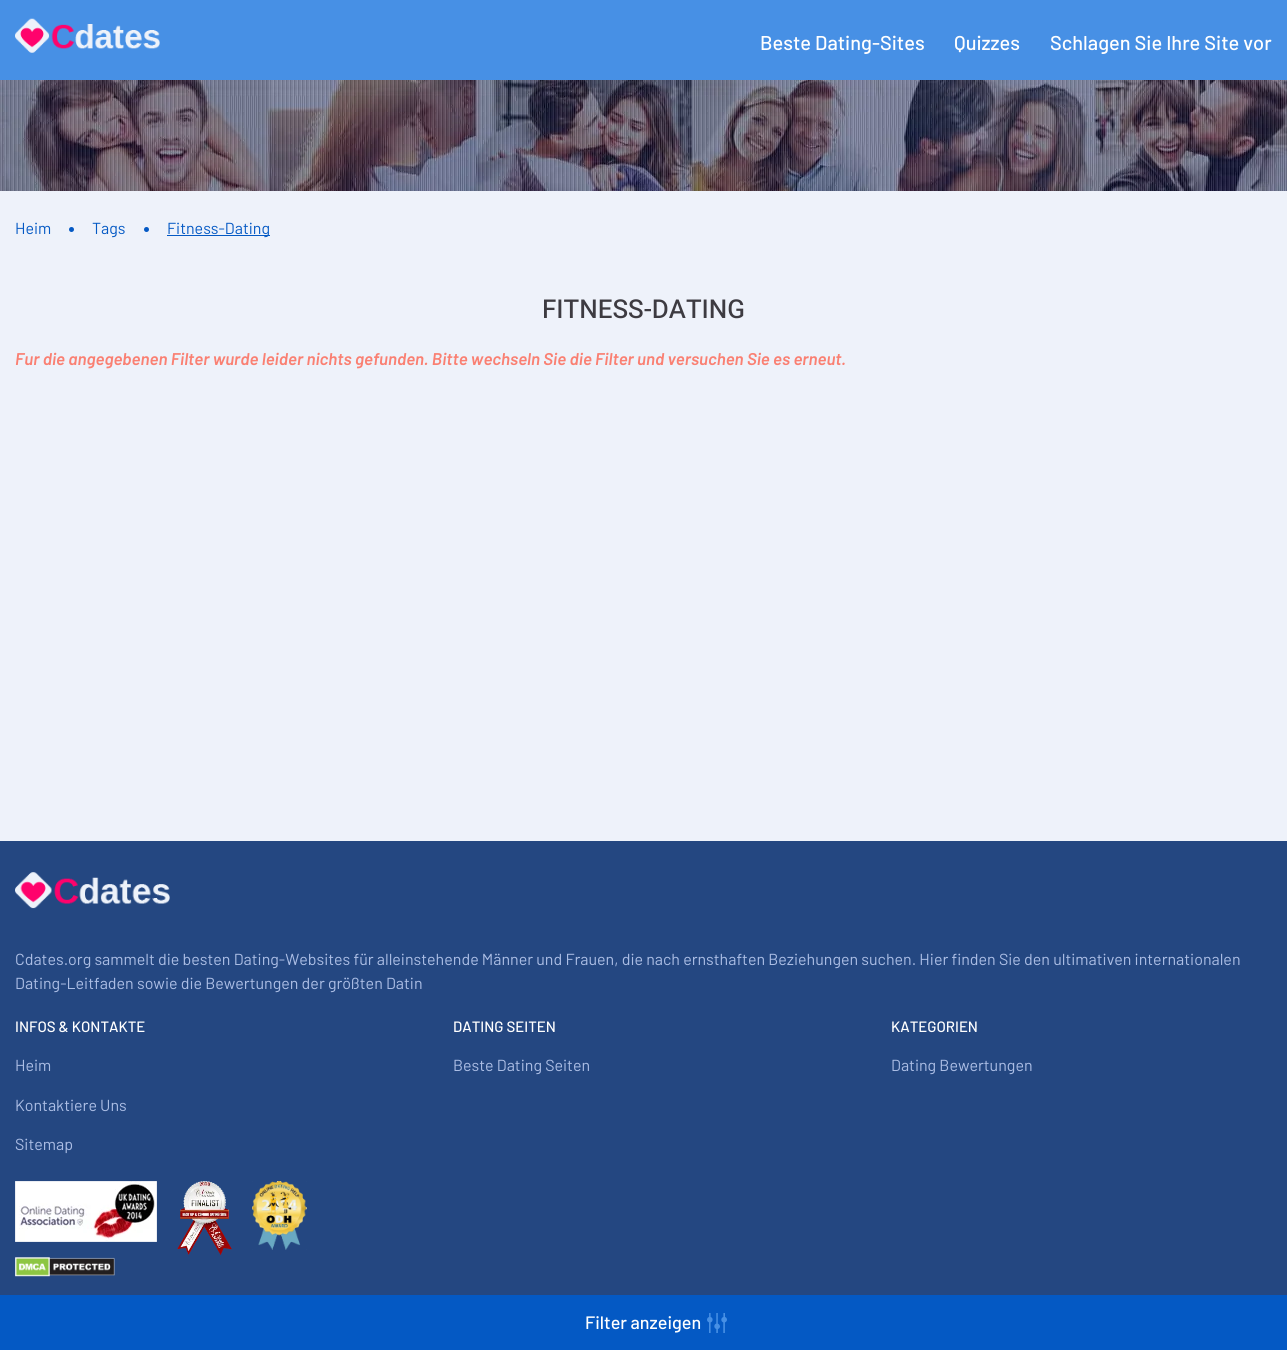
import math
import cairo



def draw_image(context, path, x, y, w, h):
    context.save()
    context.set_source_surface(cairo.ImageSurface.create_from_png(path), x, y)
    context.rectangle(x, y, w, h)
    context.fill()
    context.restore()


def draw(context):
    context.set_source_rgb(238 / 255, 242 / 255, 250 / 255)
    context.paint()
    context.set_source_rgb(71 / 255, 144 / 255, 229 / 255)
    context.rectangle(0, 0, 1287, 80)
    context.fill()
    draw_image(context, "images/1.png", 15, 18, 145, 35)
    draw_image(context, "images/2.png", 0, 80, 1287, 111)
    context.set_source_rgb(4 / 255, 89 / 255, 196 / 255)
    context.arc(71.5, 229.5, 2.5, 0, 2 * math.pi)
    context.fill()
    context.arc(146.5, 229.5, 2.5, 0, 2 * math.pi)
    context.fill()
    context.rectangle(167, 235, 103, 1)
    context.fill()
    context.rectangle(0, 1295, 1287, 55)
    context.fill()
    draw_image(context, "images/3.png", 707, 1313, 20, 20)
    context.set_source_rgb(36 / 255, 71 / 255, 129 / 255)
    context.rectangle(0, 841, 1287, 454)
    context.fill()
    draw_image(context, "images/4.png", 15, 872, 155, 37)
    draw_image(context, "images/5.png", 15, 1181, 142, 61)
    draw_image(context, "images/6.png", 177, 1181, 55, 74)
    draw_image(context, "images/7.png", 252, 1181, 55, 69)
    draw_image(context, "images/8.png", 15, 1257, 100, 20)
    context.select_font_face("Barlow Medium")
    context.set_font_size(20)
    context.set_source_rgb(1, 1, 1)
    context.move_to(760, 50)
    context.show_text("Beste Dating-Sites")
    context.move_to(954, 50)
    context.show_text("Quizzes")
    context.move_to(1050, 50)
    context.show_text("Schlagen Sie Ihre Site vor")
    context.select_font_face("Barlow")
    context.set_font_size(16)
    context.set_source_rgb(4 / 255, 89 / 255, 196 / 255)
    context.move_to(15, 234)
    context.show_text("Heim")
    context.move_to(92, 234)
    context.show_text("Tags")
    context.move_to(167, 234)
    context.show_text("Fitness-Dating")
    context.select_font_face("Heebo Medium")
    context.set_font_size(26)
    context.set_source_rgb(61 / 255, 59 / 255, 65 / 255)
    context.move_to(542, 318)
    context.show_text("FITNESS-DATING")
    context.select_font_face("Barlow SemiBold", cairo.FontSlant.ITALIC)
    context.set_font_size(17)
    context.set_source_rgb(250 / 255, 128 / 255, 114 / 255)
    context.move_to(15, 365)
    context.show_text("Fur die angegebenen Filter wurde leider nichts gefunden. Bitte wechseln Sie die Filter und versuchen Sie es erneut.")
    context.select_font_face("Barlow Medium")
    context.set_font_size(18)
    context.set_source_rgb(1, 1, 1)
    context.move_to(585, 1329)
    context.show_text("Filter anzeigen")
    context.select_font_face("Barlow")
    context.set_font_size(16)
    context.set_source_rgb(172 / 255, 190 / 255, 229 / 255)
    context.move_to(15, 965)
    context.show_text("Cdates.org sammelt die besten Dating-Websites für alleinstehende Männer und Frauen, die nach ernsthaften Beziehungen suchen. Hier finden Sie den ultimativen internationalen")
    context.move_to(15, 989)
    context.show_text("Dating-Leitfaden sowie die Bewertungen der größten Datin")
    context.select_font_face("Barlow Medium")
    context.set_font_size(15)
    context.set_source_rgb(1, 1, 1)
    context.move_to(15, 1032)
    context.show_text("INFOS & KONTAKTE")
    context.select_font_face("Barlow")
    context.set_font_size(16)
    context.set_source_rgb(172 / 255, 190 / 255, 229 / 255)
    context.move_to(15, 1071)
    context.show_text("Heim")
    context.move_to(15, 1111)
    context.show_text("Kontaktiere Uns")
    context.move_to(15, 1150)
    context.show_text("Sitemap")
    context.select_font_face("Barlow Medium")
    context.set_font_size(15)
    context.set_source_rgb(1, 1, 1)
    context.move_to(453, 1032)
    context.show_text("DATING SEITEN")
    context.select_font_face("Barlow")
    context.set_font_size(16)
    context.set_source_rgb(172 / 255, 190 / 255, 229 / 255)
    context.move_to(453, 1071)
    context.show_text("Beste Dating Seiten")
    context.select_font_face("Barlow Medium")
    context.set_font_size(15)
    context.set_source_rgb(1, 1, 1)
    context.move_to(891, 1032)
    context.show_text("KATEGORIEN")
    context.select_font_face("Barlow")
    context.set_font_size(16)
    context.set_source_rgb(172 / 255, 190 / 255, 229 / 255)
    context.move_to(891, 1071)
    context.show_text("Dating Bewertungen")


surface = cairo.ImageSurface(cairo.Format.RGB24, 1287, 1350)
context = cairo.Context(surface)
options = cairo.FontOptions()
options.set_hint_metrics(cairo.HintMetrics.OFF)
options.set_hint_style(cairo.HintStyle.NONE)
context.set_font_options(options)
context.set_miter_limit(4)
draw(context)
surface.write_to_png("out.png")
